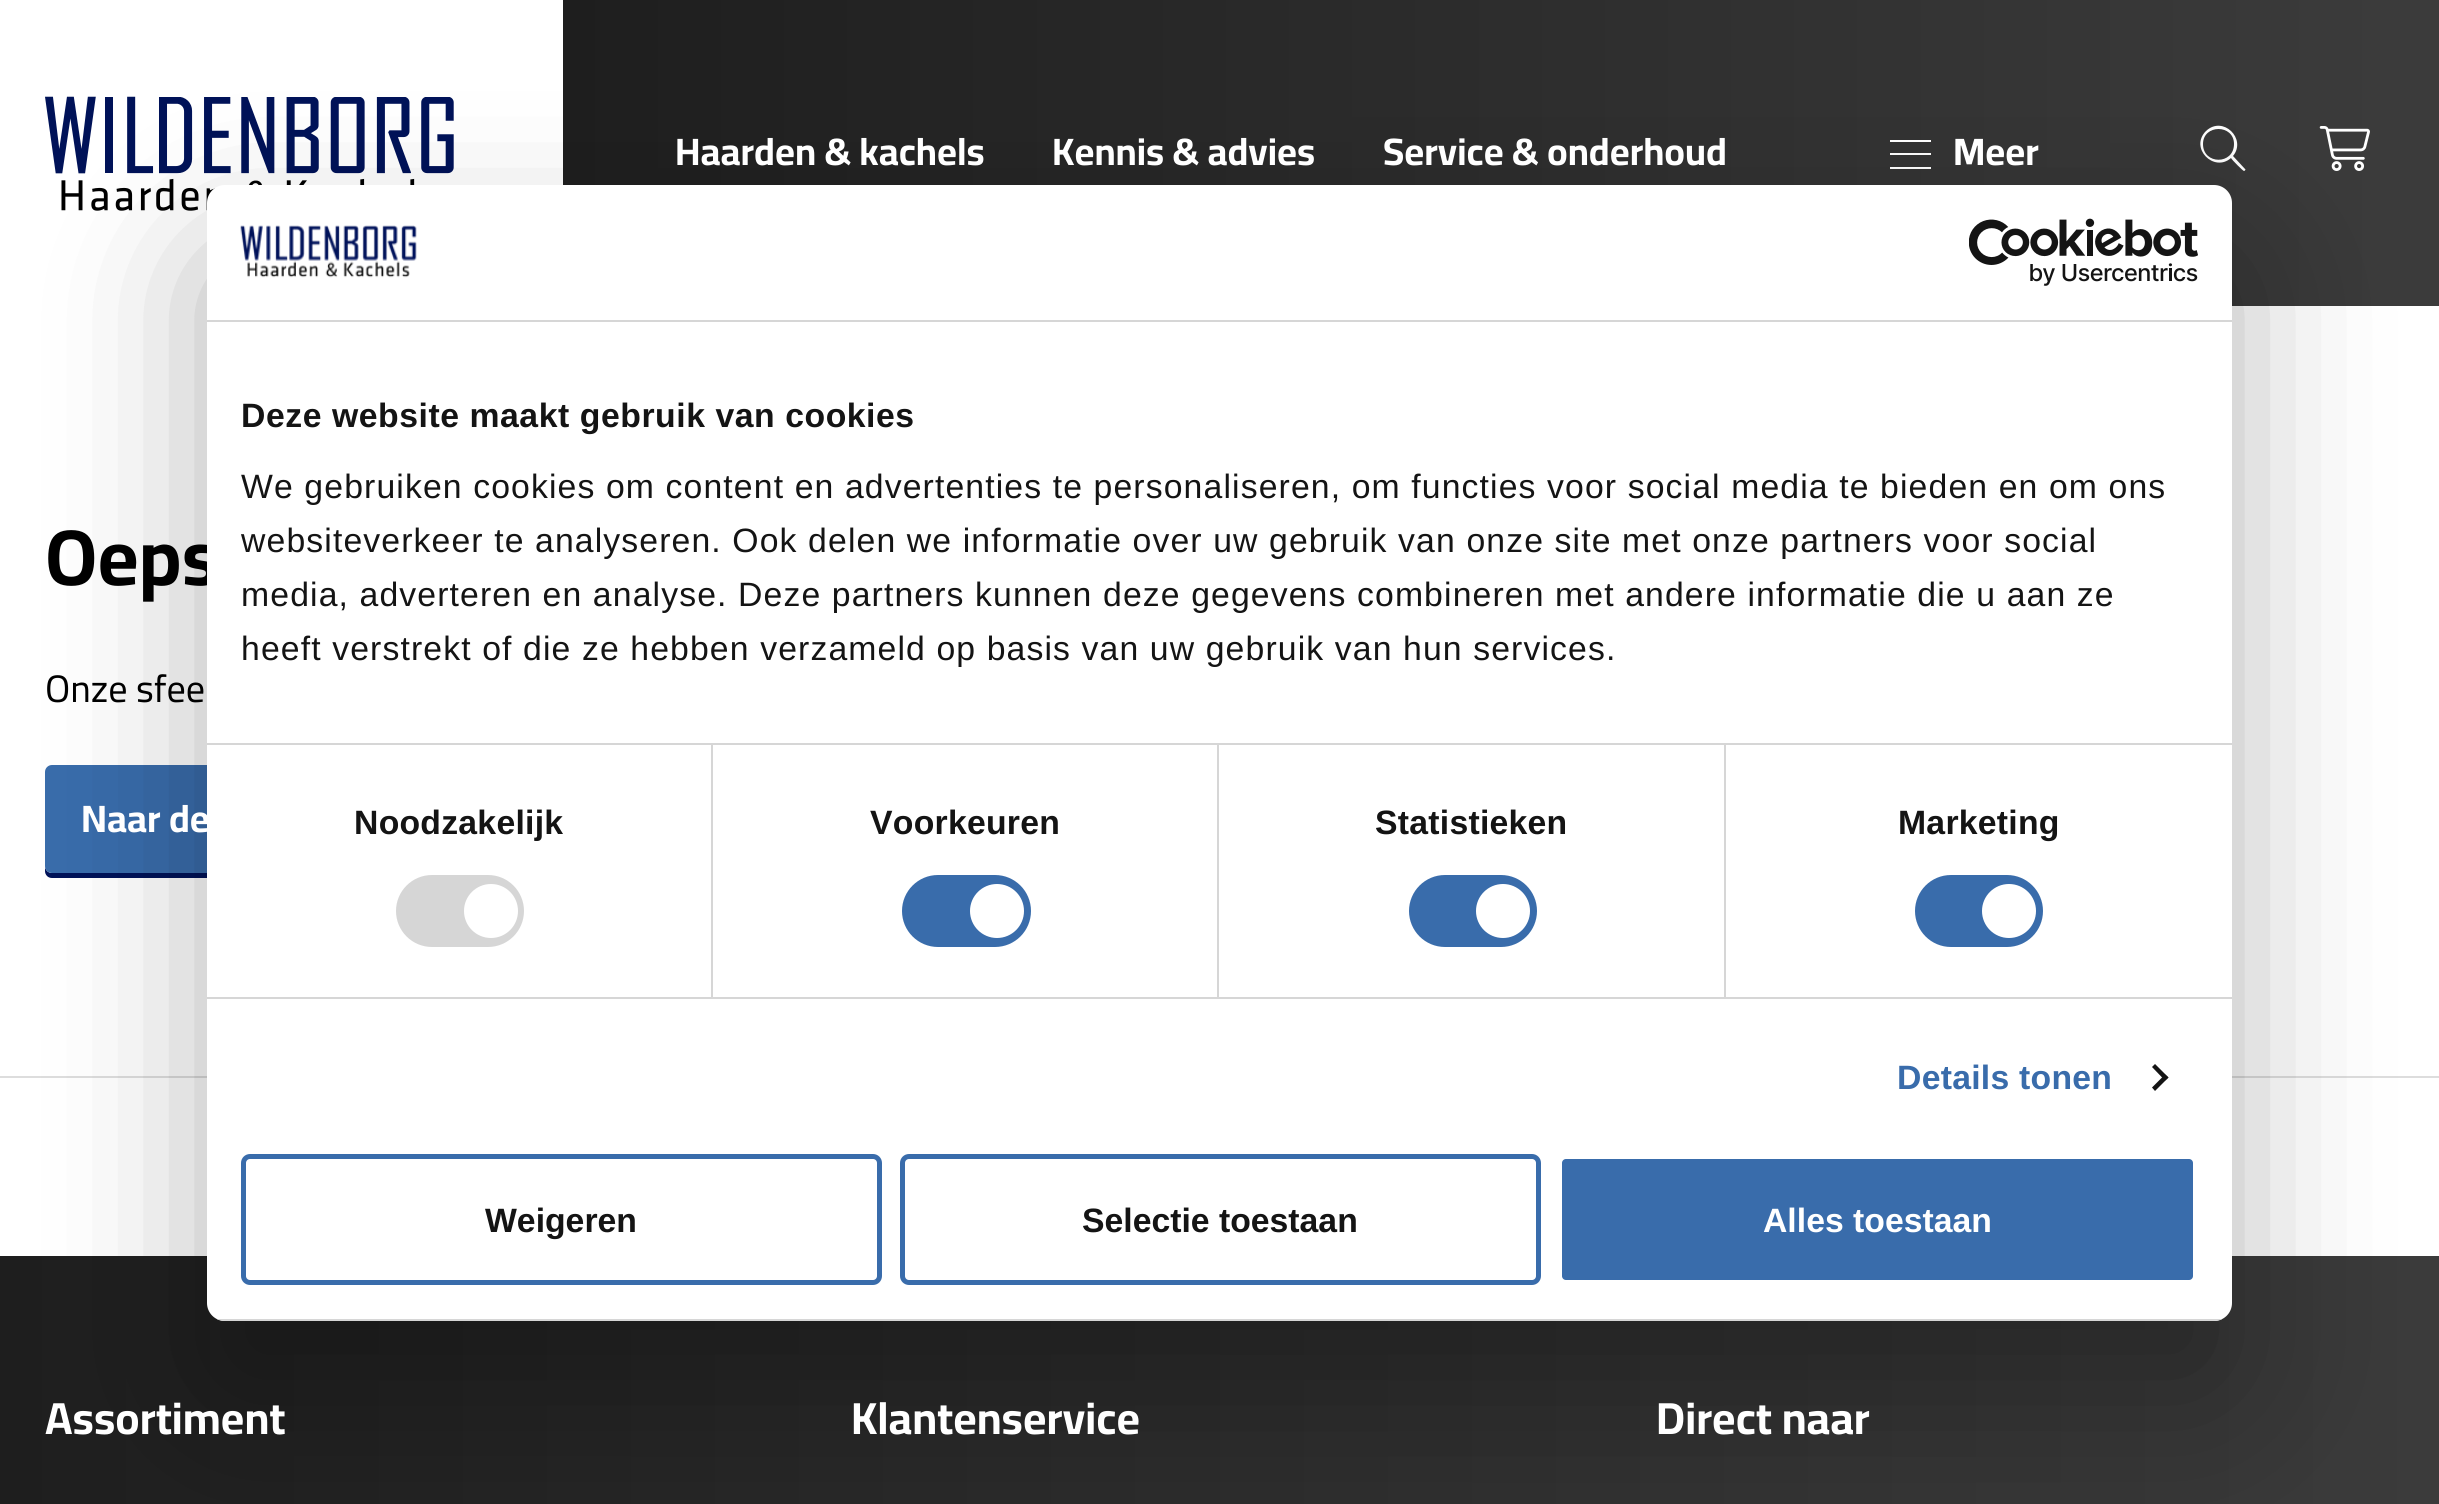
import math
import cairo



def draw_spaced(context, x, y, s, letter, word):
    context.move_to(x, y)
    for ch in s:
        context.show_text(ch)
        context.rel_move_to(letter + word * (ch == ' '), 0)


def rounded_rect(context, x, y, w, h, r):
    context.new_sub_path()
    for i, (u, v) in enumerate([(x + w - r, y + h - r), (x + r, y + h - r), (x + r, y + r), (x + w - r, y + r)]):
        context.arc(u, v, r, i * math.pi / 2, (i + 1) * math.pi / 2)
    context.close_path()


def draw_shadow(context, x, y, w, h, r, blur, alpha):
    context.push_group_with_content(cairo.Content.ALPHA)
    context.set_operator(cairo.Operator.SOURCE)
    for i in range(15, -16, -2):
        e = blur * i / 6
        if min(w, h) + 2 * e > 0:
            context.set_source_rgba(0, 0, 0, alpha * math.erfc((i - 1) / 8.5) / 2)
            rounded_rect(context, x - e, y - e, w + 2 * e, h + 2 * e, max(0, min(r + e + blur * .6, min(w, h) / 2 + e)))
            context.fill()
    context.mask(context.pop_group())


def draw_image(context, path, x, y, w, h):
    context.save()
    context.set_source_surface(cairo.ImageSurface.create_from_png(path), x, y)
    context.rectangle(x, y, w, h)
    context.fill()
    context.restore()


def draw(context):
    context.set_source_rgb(1, 1, 1)
    context.paint()
    draw_image(context, "images/1.png", 45, 96, 409, 115)
    gradient = cairo.LinearGradient(563, 153, 2394, 153)
    gradient.add_color_stop_rgba(0, 30 / 255, 30 / 255, 30 / 255, 1)
    gradient.add_color_stop_rgba(1, 59 / 255, 59 / 255, 59 / 255, 1)
    context.set_source(gradient)
    context.rectangle(563, 0, 1831, 306)
    context.fill()
    context.set_source_rgb(1, 1, 1)
    context.rectangle(1890, 153, 41, 2)
    context.fill()
    context.rectangle(1890, 140, 41, 2)
    context.fill()
    context.rectangle(1890, 167, 41, 2)
    context.fill()
    context.new_path()
    context.move_to(2234, 144)
    context.curve_to(2234, 124, 2203, 124, 2203, 144)
    context.curve_to(2203, 165, 2234, 165, 2234, 144)
    context.close_path()
    context.move_to(2231, 158)
    context.curve_to(2214, 173, 2189, 148, 2206, 131)
    context.curve_to(2223, 115, 2247, 139, 2233, 156)
    context.line_to(2245, 169)
    context.curve_to(2246, 169, 2245, 171, 2244, 171)
    context.curve_to(2243, 171, 2232, 160, 2231, 158)
    context.close_path()
    context.fill()
    draw_image(context, "images/2.png", 2319, 126, 51, 45)
    context.set_source_rgb(59 / 255, 59 / 255, 59 / 255)
    context.rectangle(2394, 0, 45, 306)
    context.fill()
    context.set_source_rgb(0, 18 / 255, 88 / 255)
    context.new_path()
    context.move_to(45, 866)
    context.line_to(45, 871)
    context.curve_to(45, 875, 48, 878, 52, 878)
    context.line_to(484, 878)
    context.curve_to(488, 878, 491, 875, 491, 871)
    context.line_to(491, 777)
    context.line_to(490, 774)
    context.line_to(490, 866)
    context.curve_to(490, 870, 487, 873, 484, 873)
    context.line_to(52, 873)
    context.curve_to(48, 873, 45, 870, 45, 866)
    context.close_path()
    context.fill()
    context.set_source_rgb(57 / 255, 108 / 255, 171 / 255)
    rounded_rect(context, 46, 766, 444, 106, 6)
    context.fill_preserve()
    context.stroke()
    context.set_source_rgb(221 / 255, 221 / 255, 221 / 255)
    context.rectangle(0, 1076, 2439, 2)
    context.fill()
    gradient = cairo.LinearGradient(0, 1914, 2439, 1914)
    gradient.add_color_stop_rgba(0, 30 / 255, 30 / 255, 30 / 255, 1)
    gradient.add_color_stop_rgba(1, 59 / 255, 59 / 255, 59 / 255, 1)
    context.set_source(gradient)
    context.rectangle(0, 1256, 2439, 248)
    context.fill()
    context.set_source_rgb(0, 0, 0)
    draw_shadow(context, 207, 257, 2025, 1136, 18, 76.5, 0.3)
    context.select_font_face("Cairo", cairo.FontSlant.NORMAL, cairo.FontWeight.BOLD)
    context.set_font_size(38.25)
    context.set_source_rgb(1, 1, 1)
    context.move_to(675, 165)
    context.show_text("Haarden & kachels")
    context.move_to(1052, 165)
    context.show_text("Kennis & advies")
    context.move_to(1383, 165)
    context.show_text("Service & onderhoud")
    context.move_to(1953, 165)
    context.show_text("Meer")
    context.set_font_size(79)
    context.set_source_rgb(0, 0, 0)
    context.move_to(45, 585)
    context.show_text("Oeps")
    context.select_font_face("Cairo")
    context.set_font_size(38.25)
    context.move_to(45, 702)
    context.show_text("Onze sfee")
    context.select_font_face("Cairo", cairo.FontSlant.NORMAL, cairo.FontWeight.BOLD)
    context.set_source_rgb(1, 1, 1)
    context.move_to(81, 832)
    context.show_text("Naar de")
    rounded_rect(context, 207, 185, 2025, 1136, 18)
    context.fill()
    context.set_source_rgb(214 / 255, 214 / 255, 214 / 255)
    context.rectangle(207, 320, 2025, 2)
    context.fill()
    draw_image(context, "images/3.png", 240, 225, 177, 53)
    draw_image(context, "images/4.png", 1969, 218, 229, 68)
    context.rectangle(207, 743, 2025, 2)
    context.fill()
    context.select_font_face("Liberation Sans", cairo.FontSlant.NORMAL, cairo.FontWeight.BOLD)
    context.set_font_size(33.75)
    context.set_source_rgb(20 / 255, 20 / 255, 20 / 255)
    draw_spaced(context, 241, 427, "Deze website maakt gebruik van cookies", 0.55, 0)
    context.select_font_face("Liberation Sans")
    draw_spaced(context, 241, 498, "We gebruiken cookies om content en advertenties te personaliseren, om functies voor social media te bieden en om ons", 1.12, 0)
    draw_spaced(context, 241, 552, "websiteverkeer te analyseren. Ook delen we informatie over uw gebruik van onze site met onze partners voor social", 1.12, 0)
    draw_spaced(context, 241, 606, "media, adverteren en analyse. Deze partners kunnen deze gegevens combineren met andere informatie die u aan ze", 1.12, 0)
    draw_spaced(context, 241, 660, "heeft verstrekt of die ze hebben verzameld op basis van uw gebruik van hun services.", 1.12, 0)
    context.set_source_rgb(214 / 255, 214 / 255, 214 / 255)
    context.rectangle(207, 997, 2025, 2)
    context.fill()
    context.rectangle(711, 745, 2, 252)
    context.fill()
    context.select_font_face("Liberation Sans", cairo.FontSlant.NORMAL, cairo.FontWeight.BOLD)
    context.set_source_rgb(20 / 255, 20 / 255, 20 / 255)
    draw_spaced(context, 354, 834, "Noodzakelijk", 0.25, 0)
    context.set_source_rgb(214 / 255, 214 / 255, 214 / 255)
    rounded_rect(context, 396, 875, 128, 72, 36)
    context.fill()
    context.set_source_rgb(1, 1, 1)
    context.arc(491, 911, 27, 0, 2 * math.pi)
    context.fill()
    context.set_source_rgb(214 / 255, 214 / 255, 214 / 255)
    context.rectangle(1217, 745, 2, 252)
    context.fill()
    context.set_source_rgb(20 / 255, 20 / 255, 20 / 255)
    draw_spaced(context, 870, 834, "Voorkeuren", 0.25, 0)
    context.set_source_rgb(57 / 255, 108 / 255, 171 / 255)
    rounded_rect(context, 902, 875, 129, 72, 36)
    context.fill()
    context.set_source_rgb(1, 1, 1)
    context.arc(997, 911, 27, 0, 2 * math.pi)
    context.fill()
    context.set_source_rgb(214 / 255, 214 / 255, 214 / 255)
    context.rectangle(1724, 745, 2, 252)
    context.fill()
    context.set_source_rgb(20 / 255, 20 / 255, 20 / 255)
    draw_spaced(context, 1375, 834, "Statistieken", 0.25, 0)
    context.set_source_rgb(57 / 255, 108 / 255, 171 / 255)
    rounded_rect(context, 1409, 875, 128, 72, 36)
    context.fill()
    context.set_source_rgb(1, 1, 1)
    context.arc(1503, 911, 27, 0, 2 * math.pi)
    context.fill()
    context.set_source_rgb(20 / 255, 20 / 255, 20 / 255)
    draw_spaced(context, 1898, 834, "Marketing", 0.25, 0)
    context.set_source_rgb(57 / 255, 108 / 255, 171 / 255)
    rounded_rect(context, 1915, 875, 128, 72, 36)
    context.fill()
    context.set_source_rgb(1, 1, 1)
    context.arc(2009, 911, 27, 0, 2 * math.pi)
    context.fill()
    context.set_source_rgb(57 / 255, 108 / 255, 171 / 255)
    draw_spaced(context, 1897, 1089, "Details tonen", 0.25, 0)
    context.set_source_rgb(20 / 255, 20 / 255, 20 / 255)
    context.new_path()
    context.move_to(2155, 1064)
    context.line_to(2168.5, 1077.5)
    context.line_to(2165, 1080.5)
    context.line_to(2152, 1067)
    context.close_path()
    context.fill()
    context.new_path()
    context.move_to(2165, 1074.5)
    context.line_to(2168.5, 1077.5)
    context.line_to(2155, 1091)
    context.line_to(2152, 1087.5)
    context.close_path()
    context.fill()
    context.save()
    rounded_rect(context, 207, 185, 2025, 1136, 18)
    context.clip()
    context.set_source_rgb(214 / 255, 214 / 255, 214 / 255)
    context.rectangle(217, 1319, 2005, 2)
    context.fill()
    context.restore()
    rounded_rect(context, 243.5, 1156.5, 636, 126, 6.5)
    context.set_source_rgb(57 / 255, 108 / 255, 171 / 255)
    context.set_line_width(5)
    context.stroke()
    context.set_source_rgb(20 / 255, 20 / 255, 20 / 255)
    context.move_to(485, 1232)
    context.show_text("Weigeren")
    rounded_rect(context, 902.5, 1156.5, 636, 126, 6.5)
    context.set_source_rgb(57 / 255, 108 / 255, 171 / 255)
    context.stroke()
    context.set_source_rgb(20 / 255, 20 / 255, 20 / 255)
    context.move_to(1082, 1232)
    context.show_text("Selectie toestaan")
    context.set_source_rgb(57 / 255, 108 / 255, 171 / 255)
    rounded_rect(context, 1559.5, 1156.5, 636, 126, 6.5)
    context.fill_preserve()
    context.set_source_rgb(1, 1, 1)
    context.stroke()
    context.move_to(1763, 1232)
    context.show_text("Alles toestaan")
    context.select_font_face("Cairo", cairo.FontSlant.NORMAL, cairo.FontWeight.BOLD)
    context.set_font_size(45)
    context.move_to(45, 1434)
    context.show_text("Assortiment")
    context.move_to(851, 1434)
    context.show_text("Klantenservice")
    context.move_to(1656, 1434)
    context.show_text("Direct naar")


surface = cairo.ImageSurface(cairo.Format.RGB24, 2439, 1504)
context = cairo.Context(surface)
options = cairo.FontOptions()
options.set_hint_metrics(cairo.HintMetrics.OFF)
options.set_hint_style(cairo.HintStyle.NONE)
context.set_font_options(options)
context.set_miter_limit(4)
draw(context)
surface.write_to_png("out.png")
